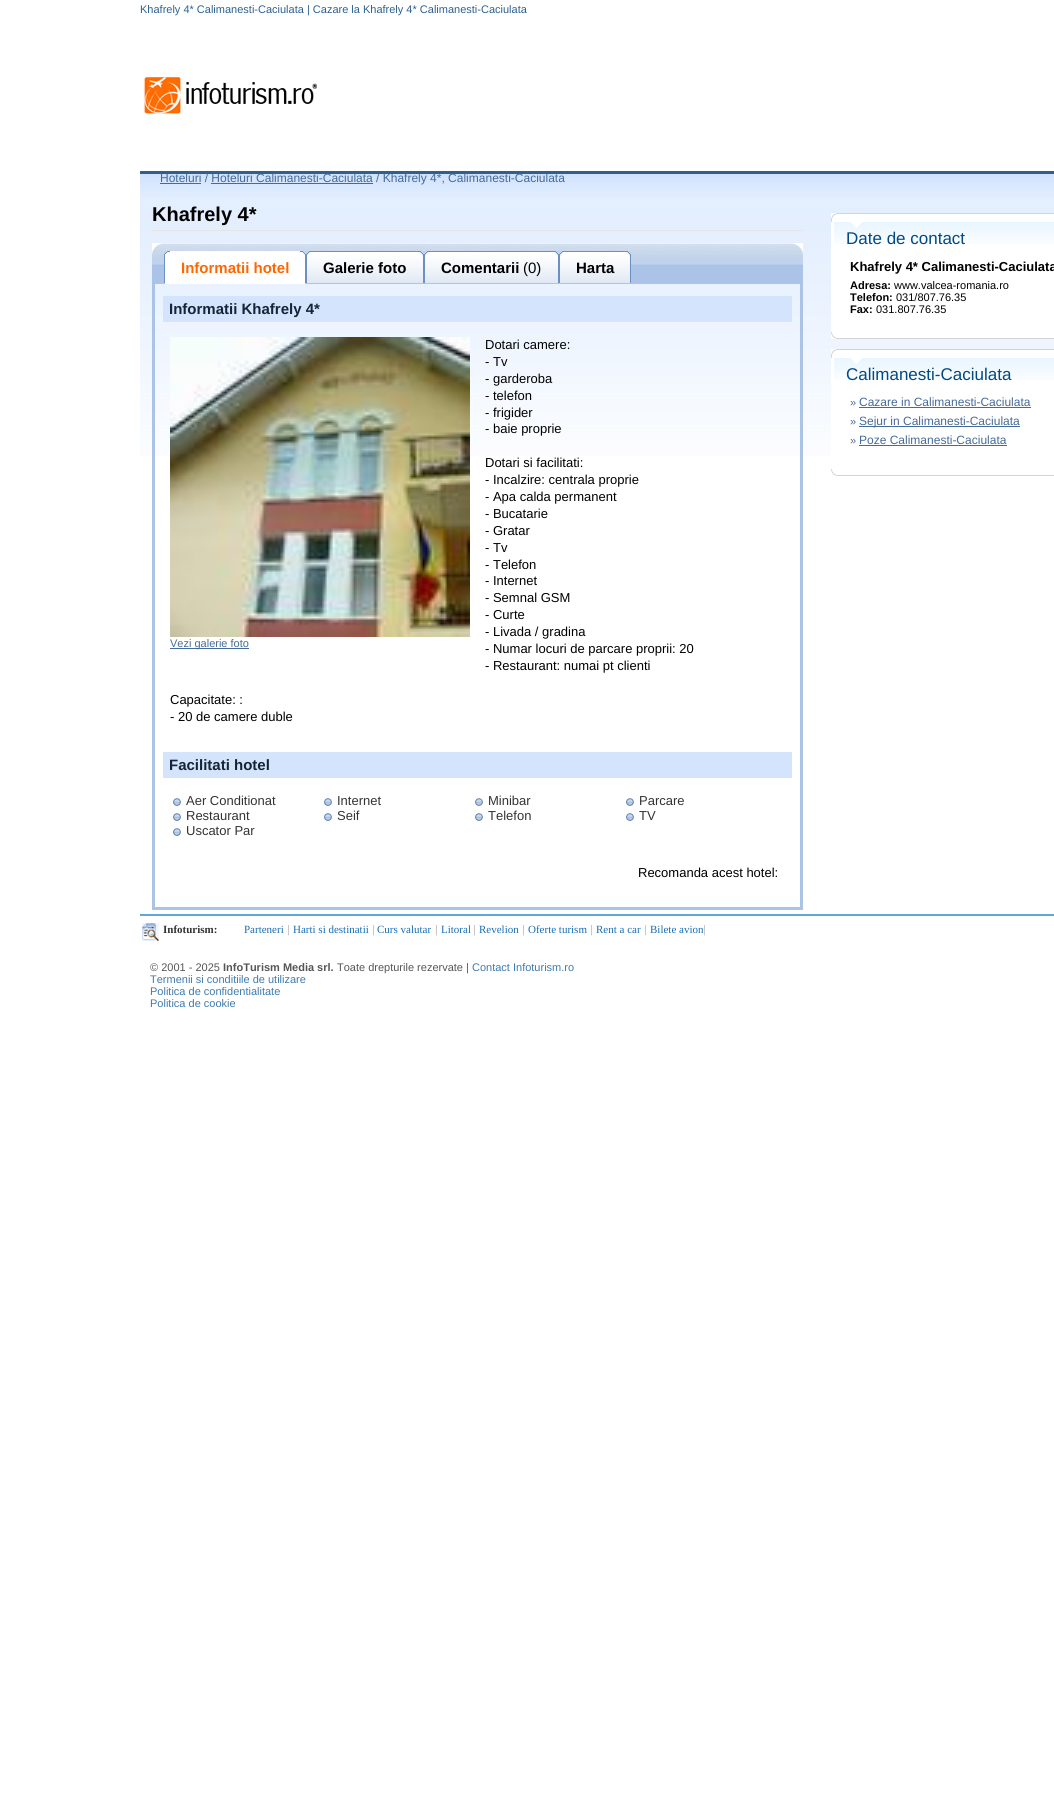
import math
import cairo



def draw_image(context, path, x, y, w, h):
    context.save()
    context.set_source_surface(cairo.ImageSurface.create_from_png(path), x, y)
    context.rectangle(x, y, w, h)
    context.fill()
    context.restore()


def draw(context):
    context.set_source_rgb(1, 1, 1)
    context.paint()
    draw_image(context, "images/1.png", 144, 76, 174, 38)
    draw_image(context, "images/2.png", 140, 171, 914, 285)
    context.set_source_rgb(69 / 255, 107 / 255, 152 / 255)
    context.rectangle(160, 183, 41, 1)
    context.fill()
    context.rectangle(211, 183, 162, 1)
    context.fill()
    context.set_source_rgb(229 / 255, 229 / 255, 229 / 255)
    context.rectangle(152, 230, 651, 1)
    context.fill()
    draw_image(context, "images/3.png", 152, 243, 651, 41)
    draw_image(context, "images/4.png", 164, 251, 6, 33)
    context.set_source_rgb(1, 1, 1)
    context.rectangle(170, 251, 130, 33)
    context.fill()
    draw_image(context, "images/5.png", 300, 251, 6, 33)
    draw_image(context, "images/6.png", 306, 251, 6, 32)
    draw_image(context, "images/7.png", 312, 251, 106, 32)
    draw_image(context, "images/8.png", 418, 251, 6, 32)
    draw_image(context, "images/6.png", 424, 251, 6, 32)
    draw_image(context, "images/9.png", 430, 251, 123, 32)
    draw_image(context, "images/8.png", 553, 251, 6, 32)
    draw_image(context, "images/6.png", 559, 251, 6, 32)
    draw_image(context, "images/10.png", 565, 251, 60, 32)
    draw_image(context, "images/8.png", 625, 251, 6, 32)
    context.set_source_rgb(171 / 255, 195 / 255, 231 / 255)
    context.rectangle(800, 284, 3, 626)
    context.fill()
    context.rectangle(152, 907, 651, 3)
    context.fill()
    context.rectangle(152, 284, 3, 626)
    context.fill()
    context.set_source_rgb(212 / 255, 228 / 255, 253 / 255)
    context.rectangle(163, 296, 629, 26)
    context.fill()
    draw_image(context, "images/11.png", 170, 337, 300, 300)
    context.set_source_rgb(69 / 255, 107 / 255, 152 / 255)
    context.rectangle(170, 648, 79, 1)
    context.fill()
    context.set_source_rgb(212 / 255, 228 / 255, 253 / 255)
    context.rectangle(163, 752, 629, 26)
    context.fill()
    draw_image(context, "images/12.png", 173, 798, 8, 8)
    draw_image(context, "images/12.png", 324, 798, 8, 8)
    draw_image(context, "images/12.png", 475, 798, 8, 8)
    draw_image(context, "images/12.png", 626, 798, 8, 8)
    draw_image(context, "images/12.png", 173, 813, 8, 8)
    draw_image(context, "images/12.png", 324, 813, 8, 8)
    draw_image(context, "images/12.png", 475, 813, 8, 8)
    draw_image(context, "images/12.png", 626, 813, 8, 8)
    draw_image(context, "images/12.png", 173, 828, 8, 8)
    draw_image(context, "images/13.png", 831, 213, 223, 9)
    context.set_source_rgb(1, 1, 1)
    context.rectangle(831, 222, 223, 110)
    context.fill()
    draw_image(context, "images/14.png", 834, 222, 220, 22)
    draw_image(context, "images/15.png", 831, 332, 223, 7)
    draw_image(context, "images/13.png", 831, 349, 223, 9)
    context.rectangle(831, 358, 223, 98)
    context.fill()
    draw_image(context, "images/14.png", 834, 358, 220, 22)
    context.set_source_rgb(69 / 255, 107 / 255, 152 / 255)
    context.rectangle(859, 407, 172, 1)
    context.fill()
    context.rectangle(859, 426, 161, 1)
    context.fill()
    context.rectangle(859, 445, 148, 1)
    context.fill()
    draw_image(context, "images/15.png", 831, 469, 223, 7)
    context.set_source_rgb(95 / 255, 167 / 255, 214 / 255)
    context.rectangle(140, 914, 914, 2)
    context.fill()
    draw_image(context, "images/16.png", 142, 923, 17, 18)
    context.select_font_face("Liberation Sans")
    context.set_font_size(11)
    context.set_source_rgb(44 / 255, 96 / 255, 143 / 255)
    context.move_to(140, 13)
    context.show_text("Khafrely 4* Calimanesti-Caciulata | Cazare la Khafrely 4* Calimanesti-Caciulata")
    context.set_font_size(12)
    context.set_source_rgb(69 / 255, 107 / 255, 152 / 255)
    context.move_to(160, 182)
    context.show_text("Hoteluri / Hoteluri Calimanesti-Caciulata / Khafrely 4*, Calimanesti-Caciulata")
    context.select_font_face("Liberation Sans", cairo.FontSlant.NORMAL, cairo.FontWeight.BOLD)
    context.set_font_size(20)
    context.set_source_rgb(0, 0, 0)
    context.move_to(152, 221)
    context.show_text("Khafrely 4*")
    context.set_font_size(15)
    context.set_source_rgb(1, 102 / 255, 0)
    context.move_to(181, 273)
    context.show_text("Informatii hotel")
    context.set_source_rgb(0, 0, 0)
    context.move_to(323, 273)
    context.show_text("Galerie foto")
    context.move_to(441, 273)
    context.show_text("Comentarii")
    context.select_font_face("Liberation Sans")
    context.move_to(523, 273)
    context.show_text("(0)")
    context.select_font_face("Liberation Sans", cairo.FontSlant.NORMAL, cairo.FontWeight.BOLD)
    context.move_to(576, 273)
    context.show_text("Harta")
    context.set_source_rgb(21 / 255, 37 / 255, 55 / 255)
    context.move_to(169, 314)
    context.show_text("Informatii Khafrely 4*")
    context.select_font_face("Liberation Sans")
    context.set_font_size(13)
    context.set_source_rgb(0, 0, 0)
    context.move_to(485, 349)
    context.show_text("Dotari camere:")
    context.move_to(485, 366)
    context.show_text("- Tv")
    context.move_to(485, 383)
    context.show_text("- garderoba")
    context.move_to(485, 400)
    context.show_text("- telefon")
    context.move_to(485, 417)
    context.show_text("- frigider")
    context.move_to(485, 433)
    context.show_text("- baie proprie")
    context.move_to(485, 467)
    context.show_text("Dotari si facilitati:")
    context.move_to(485, 484)
    context.show_text("- Incalzire: centrala proprie")
    context.move_to(485, 501)
    context.show_text("- Apa calda permanent")
    context.move_to(485, 518)
    context.show_text("- Bucatarie")
    context.move_to(485, 535)
    context.show_text("- Gratar")
    context.move_to(485, 552)
    context.show_text("- Tv")
    context.move_to(485, 569)
    context.show_text("- Telefon")
    context.move_to(485, 585)
    context.show_text("- Internet")
    context.move_to(485, 602)
    context.show_text("- Semnal GSM")
    context.move_to(485, 619)
    context.show_text("- Curte")
    context.move_to(485, 636)
    context.show_text("- Livada / gradina")
    context.move_to(485, 653)
    context.show_text("- Numar locuri de parcare proprii: 20")
    context.move_to(485, 670)
    context.show_text("- Restaurant: numai pt clienti")
    context.move_to(170, 704)
    context.show_text("Capacitate: :")
    context.move_to(170, 721)
    context.show_text("- 20 de camere duble")
    context.set_font_size(11)
    context.set_source_rgb(69 / 255, 107 / 255, 152 / 255)
    context.move_to(170, 647)
    context.show_text("Vezi galerie foto")
    context.select_font_face("Liberation Sans", cairo.FontSlant.NORMAL, cairo.FontWeight.BOLD)
    context.set_font_size(15)
    context.set_source_rgb(21 / 255, 37 / 255, 55 / 255)
    context.move_to(169, 770)
    context.show_text("Facilitati hotel")
    context.select_font_face("Liberation Sans")
    context.set_font_size(13)
    context.set_source_rgb(51 / 255, 51 / 255, 51 / 255)
    context.move_to(186, 805)
    context.show_text("Aer Conditionat")
    context.move_to(337, 805)
    context.show_text("Internet")
    context.move_to(488, 805)
    context.show_text("Minibar")
    context.move_to(639, 805)
    context.show_text("Parcare")
    context.move_to(186, 820)
    context.show_text("Restaurant")
    context.move_to(337, 820)
    context.show_text("Seif")
    context.move_to(488, 820)
    context.show_text("Telefon")
    context.move_to(639, 820)
    context.show_text("TV")
    context.move_to(186, 835)
    context.show_text("Uscator Par")
    context.set_source_rgb(0, 0, 0)
    context.move_to(638, 877)
    context.show_text("Recomanda acest hotel:")
    context.set_font_size(17)
    context.set_source_rgb(0, 73 / 255, 131 / 255)
    context.move_to(846, 244)
    context.show_text("Date de contact")
    context.select_font_face("Liberation Sans", cairo.FontSlant.NORMAL, cairo.FontWeight.BOLD)
    context.set_font_size(13)
    context.set_source_rgb(0, 0, 0)
    context.move_to(850, 271)
    context.show_text("Khafrely 4* Calimanesti-Caciulata")
    context.set_font_size(11)
    context.move_to(850, 289)
    context.show_text("Adresa:")
    context.select_font_face("Liberation Sans")
    context.move_to(894, 289)
    context.show_text("www.valcea-romania.ro")
    context.select_font_face("Liberation Sans", cairo.FontSlant.NORMAL, cairo.FontWeight.BOLD)
    context.move_to(850, 301)
    context.show_text("Telefon:")
    context.select_font_face("Liberation Sans")
    context.move_to(896, 301)
    context.show_text("031/807.76.35")
    context.select_font_face("Liberation Sans", cairo.FontSlant.NORMAL, cairo.FontWeight.BOLD)
    context.move_to(850, 313)
    context.show_text("Fax:")
    context.select_font_face("Liberation Sans")
    context.move_to(876, 313)
    context.show_text("031.807.76.35")
    context.set_font_size(17)
    context.set_source_rgb(0, 73 / 255, 131 / 255)
    context.move_to(846, 380)
    context.show_text("Calimanesti-Caciulata")
    context.set_font_size(11)
    context.set_source_rgb(69 / 255, 107 / 255, 152 / 255)
    context.move_to(850, 406)
    context.show_text("»")
    context.set_font_size(12)
    context.move_to(859, 406)
    context.show_text("Cazare in Calimanesti-Caciulata")
    context.set_font_size(11)
    context.move_to(850, 425)
    context.show_text("»")
    context.set_font_size(12)
    context.move_to(859, 425)
    context.show_text("Sejur in Calimanesti-Caciulata")
    context.set_font_size(11)
    context.move_to(850, 444)
    context.show_text("»")
    context.set_font_size(12)
    context.move_to(859, 444)
    context.show_text("Poze Calimanesti-Caciulata")
    context.select_font_face("Liberation Serif", cairo.FontSlant.NORMAL, cairo.FontWeight.BOLD)
    context.set_font_size(11)
    context.set_source_rgb(51 / 255, 51 / 255, 51 / 255)
    context.move_to(163, 933)
    context.show_text("Infoturism:")
    context.select_font_face("Liberation Serif")
    context.set_source_rgb(25 / 255, 108 / 255, 179 / 255)
    context.move_to(244, 933)
    context.show_text("Parteneri")
    context.select_font_face("Liberation Sans")
    context.set_source_rgb(192 / 255, 192 / 255, 192 / 255)
    context.move_to(287, 933)
    context.show_text("|")
    context.select_font_face("Liberation Serif")
    context.set_source_rgb(25 / 255, 108 / 255, 179 / 255)
    context.move_to(293, 933)
    context.show_text("Harti si destinatii")
    context.select_font_face("Liberation Sans")
    context.set_source_rgb(192 / 255, 192 / 255, 192 / 255)
    context.move_to(372, 933)
    context.show_text("|")
    context.select_font_face("Liberation Serif")
    context.set_source_rgb(25 / 255, 108 / 255, 179 / 255)
    context.move_to(377, 933)
    context.show_text("Curs valutar")
    context.select_font_face("Liberation Sans")
    context.set_source_rgb(192 / 255, 192 / 255, 192 / 255)
    context.move_to(435, 933)
    context.show_text("|")
    context.select_font_face("Liberation Serif")
    context.set_source_rgb(25 / 255, 108 / 255, 179 / 255)
    context.move_to(441, 933)
    context.show_text("Litoral")
    context.select_font_face("Liberation Sans")
    context.set_source_rgb(192 / 255, 192 / 255, 192 / 255)
    context.move_to(473, 933)
    context.show_text("|")
    context.select_font_face("Liberation Serif")
    context.set_source_rgb(25 / 255, 108 / 255, 179 / 255)
    context.move_to(479, 933)
    context.show_text("Revelion")
    context.select_font_face("Liberation Sans")
    context.set_source_rgb(192 / 255, 192 / 255, 192 / 255)
    context.move_to(522, 933)
    context.show_text("|")
    context.select_font_face("Liberation Serif")
    context.set_source_rgb(25 / 255, 108 / 255, 179 / 255)
    context.move_to(528, 933)
    context.show_text("Oferte turism")
    context.select_font_face("Liberation Sans")
    context.set_source_rgb(192 / 255, 192 / 255, 192 / 255)
    context.move_to(590, 933)
    context.show_text("|")
    context.select_font_face("Liberation Serif")
    context.set_source_rgb(25 / 255, 108 / 255, 179 / 255)
    context.move_to(596, 933)
    context.show_text("Rent a car")
    context.select_font_face("Liberation Sans")
    context.set_source_rgb(192 / 255, 192 / 255, 192 / 255)
    context.move_to(644, 933)
    context.show_text("|")
    context.select_font_face("Liberation Serif")
    context.set_source_rgb(25 / 255, 108 / 255, 179 / 255)
    context.move_to(650, 933)
    context.show_text("Bilete avion")
    context.select_font_face("Liberation Sans")
    context.set_source_rgb(192 / 255, 192 / 255, 192 / 255)
    context.move_to(703, 933)
    context.show_text("|")
    context.set_source_rgb(85 / 255, 85 / 255, 85 / 255)
    context.move_to(150, 971)
    context.show_text("© 2001 - 2025")
    context.select_font_face("Liberation Sans", cairo.FontSlant.NORMAL, cairo.FontWeight.BOLD)
    context.move_to(223, 971)
    context.show_text("InfoTurism Media srl.")
    context.select_font_face("Liberation Sans")
    context.move_to(337, 971)
    context.show_text("Toate drepturile rezervate |")
    context.set_source_rgb(63 / 255, 122 / 255, 173 / 255)
    context.move_to(472, 971)
    context.show_text("Contact Infoturism.ro")
    context.move_to(150, 983)
    context.show_text("Termenii si conditiile de utilizare")
    context.move_to(150, 995)
    context.show_text("Politica de confidentialitate")
    context.move_to(150, 1007)
    context.show_text("Politica de cookie")


surface = cairo.ImageSurface(cairo.Format.RGB24, 1054, 1806)
context = cairo.Context(surface)
options = cairo.FontOptions()
options.set_hint_metrics(cairo.HintMetrics.OFF)
options.set_hint_style(cairo.HintStyle.NONE)
context.set_font_options(options)
context.set_miter_limit(4)
draw(context)
surface.write_to_png("out.png")
